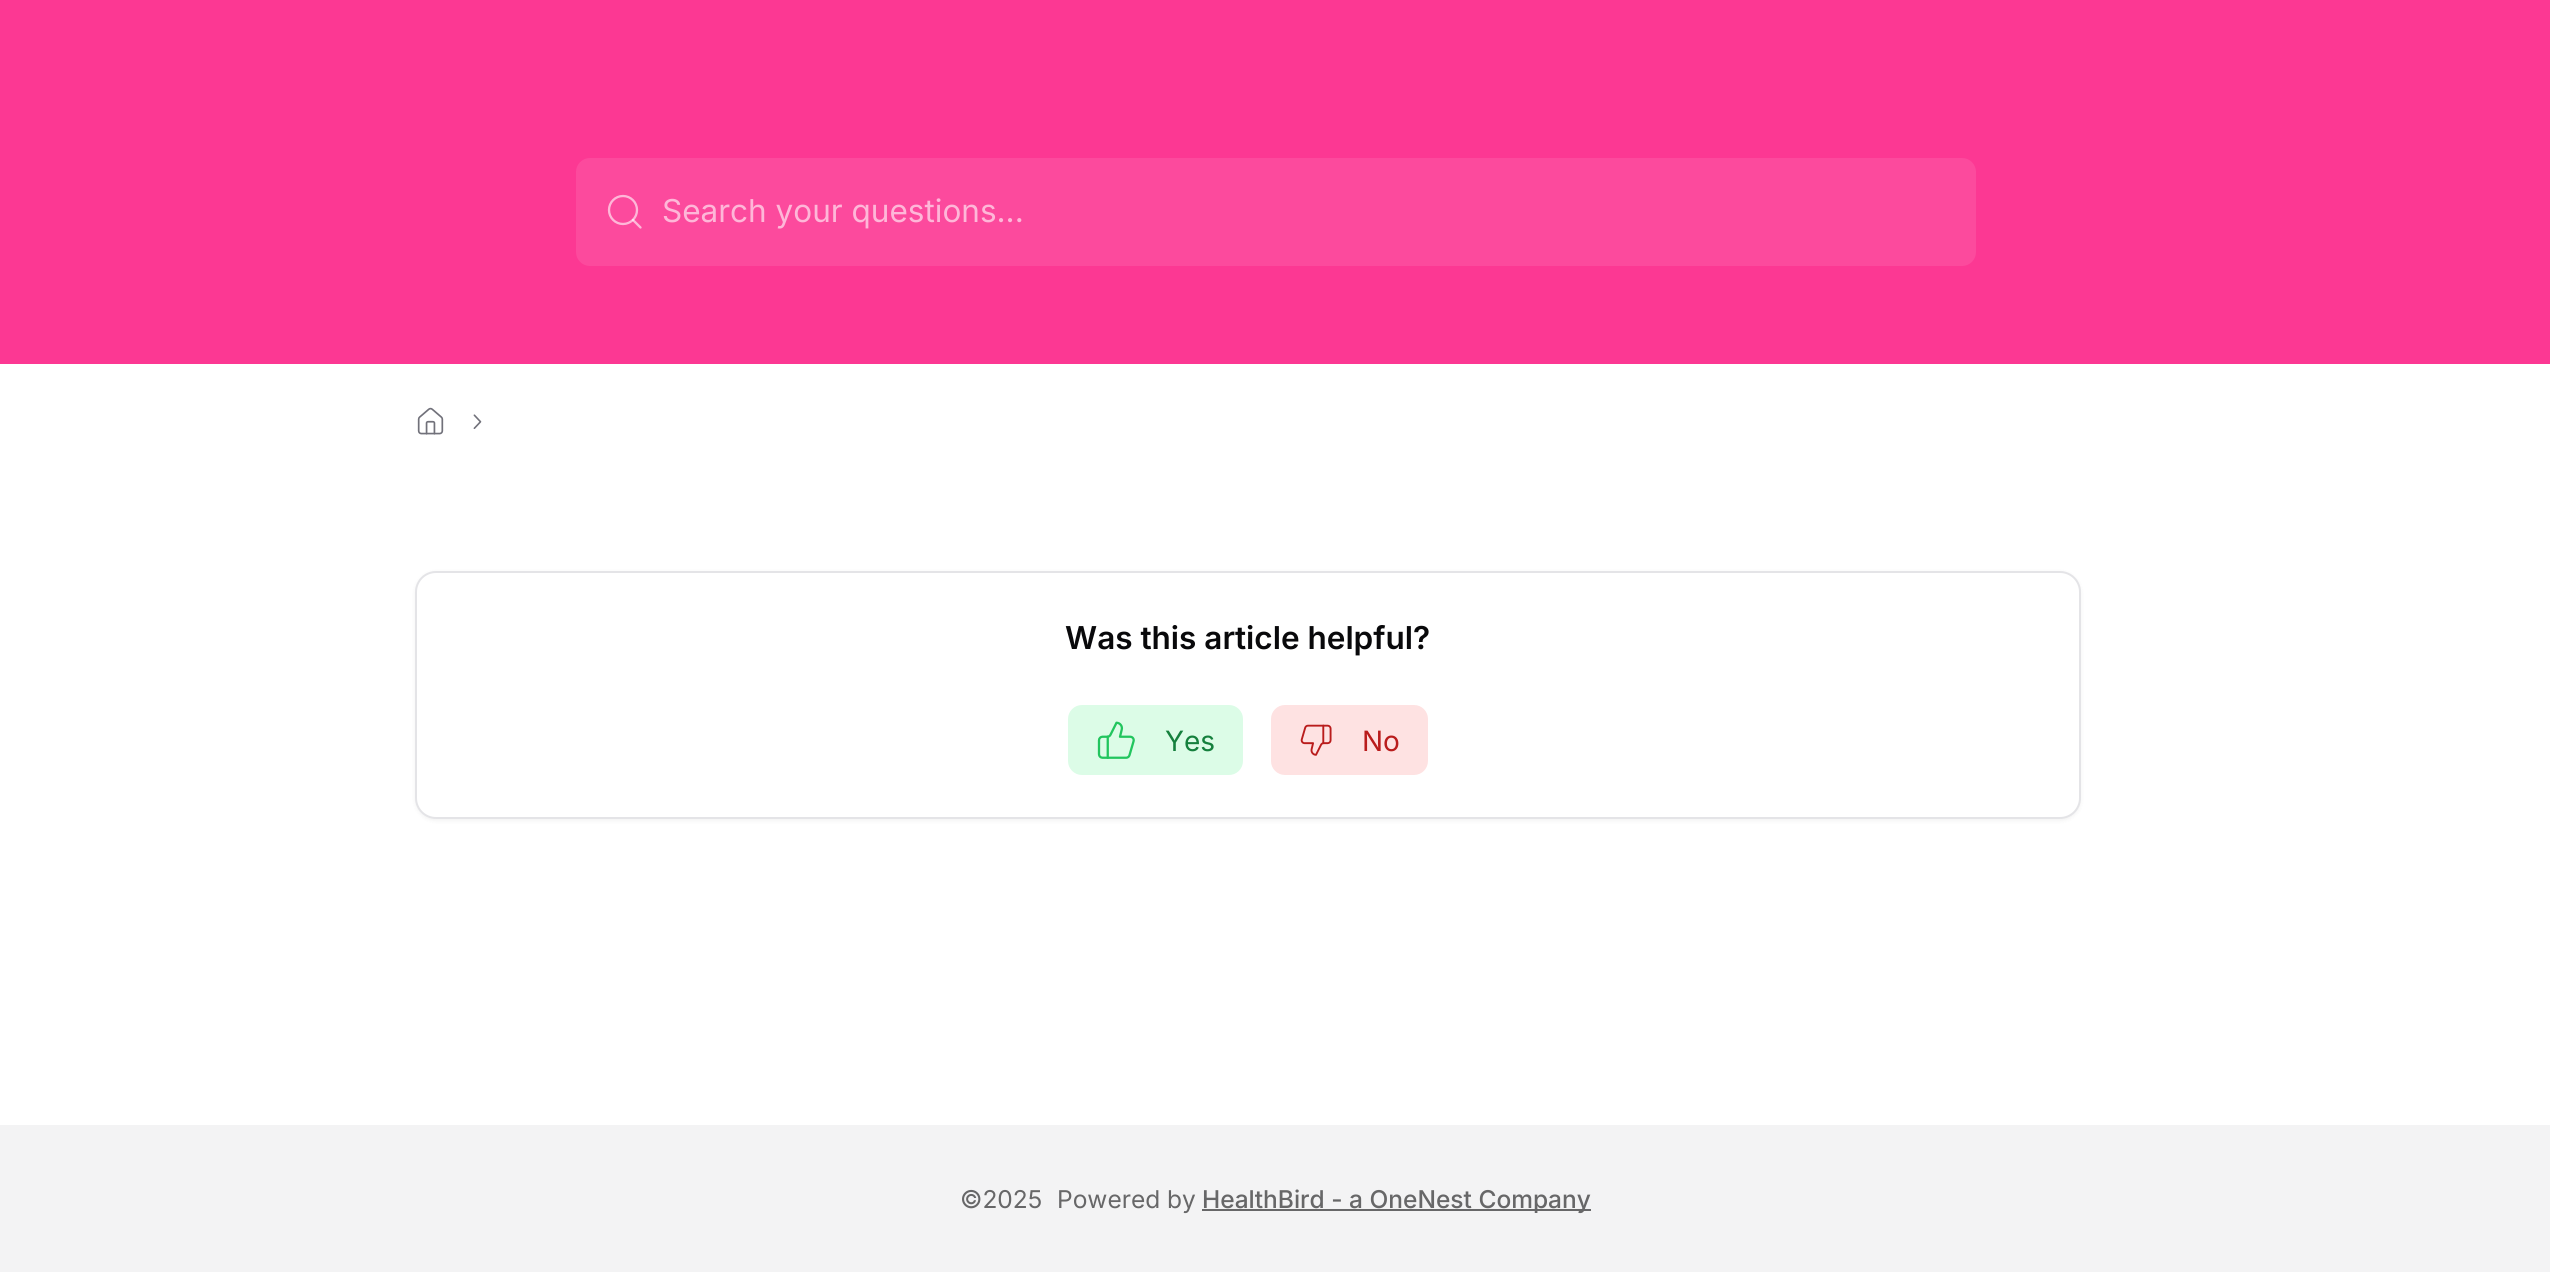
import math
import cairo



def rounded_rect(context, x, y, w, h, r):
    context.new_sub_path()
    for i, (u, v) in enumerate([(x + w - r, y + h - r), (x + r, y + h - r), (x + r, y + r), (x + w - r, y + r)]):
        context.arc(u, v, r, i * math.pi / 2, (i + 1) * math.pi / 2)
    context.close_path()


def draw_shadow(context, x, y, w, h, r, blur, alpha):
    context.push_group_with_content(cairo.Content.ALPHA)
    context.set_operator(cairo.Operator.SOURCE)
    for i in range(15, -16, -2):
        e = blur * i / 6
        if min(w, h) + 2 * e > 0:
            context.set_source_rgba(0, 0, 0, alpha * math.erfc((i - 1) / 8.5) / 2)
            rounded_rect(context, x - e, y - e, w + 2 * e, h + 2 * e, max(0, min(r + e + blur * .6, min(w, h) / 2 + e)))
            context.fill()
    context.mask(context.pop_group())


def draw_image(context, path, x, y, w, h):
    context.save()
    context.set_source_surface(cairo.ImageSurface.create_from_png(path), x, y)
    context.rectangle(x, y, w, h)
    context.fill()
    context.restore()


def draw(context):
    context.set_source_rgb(1, 1, 1)
    context.paint()
    context.set_source_rgb(252 / 255, 56 / 255, 147 / 255)
    context.rectangle(0, 0, 2550, 364)
    context.fill()
    context.set_source_rgb(252 / 255, 74 / 255, 157 / 255)
    rounded_rect(context, 576, 158, 1400, 108, 14)
    context.fill()
    context.arc(623, 210, 14, 0, 2 * math.pi)
    context.set_source_rgb(254 / 255, 183 / 255, 216 / 255)
    context.set_line_width(2.3)
    context.stroke()
    context.new_path()
    context.move_to(640.5, 227.5)
    context.line_to(633, 220)
    context.set_source_rgba(1, 1, 1, 0.6)
    context.set_line_cap(cairo.LineCap.ROUND)
    context.set_line_join(cairo.LineJoin.ROUND)
    context.stroke()
    draw_image(context, "images/1.png", 417, 407, 27, 28)
    draw_image(context, "images/2.png", 473, 414, 9, 15)
    context.set_source_rgb(0, 0, 0)
    draw_shadow(context, 415, 572, 1666, 249, 21, 2, 0.05)
    context.set_source_rgb(1, 1, 1)
    rounded_rect(context, 416, 572, 1664, 246, 20)
    context.fill_preserve()
    context.set_source_rgb(228 / 255, 228 / 255, 231 / 255)
    context.set_line_width(2)
    context.set_line_cap(cairo.LineCap.BUTT)
    context.set_line_join(cairo.LineJoin.MITER)
    context.stroke()
    context.set_source_rgb(220 / 255, 252 / 255, 231 / 255)
    rounded_rect(context, 1068, 705, 175, 70, 14)
    context.fill()
    draw_image(context, "images/3.png", 1097, 721, 38, 38)
    context.set_source_rgb(254 / 255, 226 / 255, 226 / 255)
    rounded_rect(context, 1271, 705, 157, 70, 14)
    context.fill()
    draw_image(context, "images/4.png", 1300, 724, 32, 32)
    context.set_source_rgb(243 / 255, 243 / 255, 244 / 255)
    context.rectangle(0, 1125, 2550, 147)
    context.fill()
    context.set_source_rgb(103 / 255, 103 / 255, 104 / 255)
    context.rectangle(1202, 1209, 389, 2)
    context.fill()
    context.select_font_face("Inter")
    context.set_font_size(31.5)
    context.set_source_rgb(254 / 255, 183 / 255, 216 / 255)
    context.move_to(662, 222)
    context.show_text("Search your questions...")
    context.select_font_face("Inter SemiBold")
    context.set_source_rgb(9 / 255, 9 / 255, 11 / 255)
    context.move_to(1065, 649)
    context.show_text("Was this article helpful?")
    context.select_font_face("Inter")
    context.set_font_size(28)
    context.set_source_rgb(21 / 255, 128 / 255, 61 / 255)
    context.move_to(1165, 751)
    context.show_text("Yes")
    context.set_source_rgb(185 / 255, 28 / 255, 28 / 255)
    context.move_to(1362, 751)
    context.show_text("No")
    context.set_font_size(24.5)
    context.set_source_rgb(103 / 255, 103 / 255, 104 / 255)
    context.move_to(960, 1208)
    context.show_text("©2025")
    context.move_to(1057, 1208)
    context.show_text("Powered by")
    context.select_font_face("Inter Medium")
    context.move_to(1202, 1208)
    context.show_text("HealthBird - a OneNest Company")


surface = cairo.ImageSurface(cairo.Format.RGB24, 2550, 1272)
context = cairo.Context(surface)
options = cairo.FontOptions()
options.set_hint_metrics(cairo.HintMetrics.OFF)
options.set_hint_style(cairo.HintStyle.NONE)
context.set_font_options(options)
context.set_miter_limit(4)
draw(context)
surface.write_to_png("out.png")
